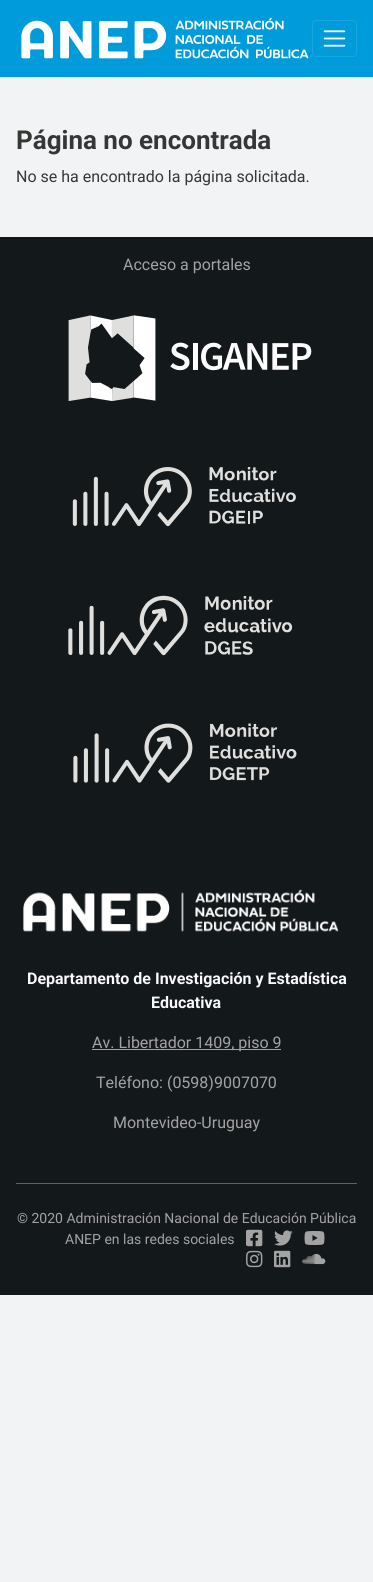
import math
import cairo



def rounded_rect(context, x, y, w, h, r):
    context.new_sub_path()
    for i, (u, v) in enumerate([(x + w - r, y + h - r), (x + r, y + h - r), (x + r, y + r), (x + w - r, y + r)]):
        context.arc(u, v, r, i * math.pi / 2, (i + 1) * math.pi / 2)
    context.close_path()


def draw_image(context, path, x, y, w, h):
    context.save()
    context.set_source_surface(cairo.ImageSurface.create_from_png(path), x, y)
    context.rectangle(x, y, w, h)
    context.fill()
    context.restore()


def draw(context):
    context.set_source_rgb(242 / 255, 243 / 255, 244 / 255)
    context.paint()
    context.set_source_rgb(0, 155 / 255, 219 / 255)
    context.rectangle(0, 0, 373, 77)
    context.fill()
    draw_image(context, "images/1.png", 21, 17, 288, 42)
    rounded_rect(context, 312.5, 20.5, 44, 36, 3.5)
    context.set_source_rgb(26 / 255, 165 / 255, 223 / 255)
    context.set_line_width(1)
    context.stroke()
    draw_image(context, "images/2.png", 323, 30, 23, 17)
    context.set_source_rgb(19 / 255, 24 / 255, 27 / 255)
    context.rectangle(0, 237, 373, 1058)
    context.fill()
    draw_image(context, "images/3.png", 68, 315, 244, 86)
    draw_image(context, "images/4.png", 72, 467, 224, 60)
    draw_image(context, "images/5.png", 68, 595, 225, 61)
    draw_image(context, "images/6.png", 73, 723, 224, 60)
    draw_image(context, "images/7.png", 23, 889, 316, 43)
    context.set_source_rgb(163 / 255, 163 / 255, 163 / 255)
    context.rectangle(92, 1049, 189, 1)
    context.fill()
    context.set_source_rgb(98 / 255, 98 / 255, 98 / 255)
    context.rectangle(16, 1183, 341, 1)
    context.fill()
    draw_image(context, "images/8.png", 246, 1229, 17, 18)
    draw_image(context, "images/9.png", 274, 1230, 19, 16)
    draw_image(context, "images/10.png", 304, 1231, 21, 14)
    draw_image(context, "images/11.png", 246, 1250, 17, 18)
    draw_image(context, "images/12.png", 274, 1250, 17, 18)
    draw_image(context, "images/13.png", 302, 1253, 24, 12)
    context.select_font_face("Roboto", cairo.FontSlant.NORMAL, cairo.FontWeight.BOLD)
    context.set_font_size(26)
    context.set_source_rgb(54 / 255, 54 / 255, 54 / 255)
    context.move_to(16, 149)
    context.show_text("Página no encontrada")
    context.select_font_face("Roboto")
    context.set_font_size(16)
    context.move_to(16, 182)
    context.show_text("No se ha encontrado la página solicitada.")
    context.set_source_rgb(163 / 255, 163 / 255, 163 / 255)
    context.move_to(123, 270)
    context.show_text("Acceso a portales")
    context.select_font_face("Roboto", cairo.FontSlant.NORMAL, cairo.FontWeight.BOLD)
    context.set_source_rgb(248 / 255, 249 / 255, 250 / 255)
    context.move_to(27, 984)
    context.show_text("Departamento de Investigación y Estadística")
    context.move_to(151, 1008)
    context.show_text("Educativa")
    context.select_font_face("Roboto")
    context.set_source_rgb(163 / 255, 163 / 255, 163 / 255)
    context.move_to(92, 1048)
    context.show_text("Av. Libertador 1409, piso 9")
    context.move_to(96, 1088)
    context.show_text("Teléfono: (0598)9007070")
    context.move_to(113, 1128)
    context.show_text("Montevideo-Uruguay")
    context.set_font_size(14)
    context.move_to(17, 1223)
    context.show_text("© 2020 Administración Nacional de Educación Pública")
    context.move_to(65, 1244)
    context.show_text("ANEP en las redes sociales")


surface = cairo.ImageSurface(cairo.Format.RGB24, 373, 1582)
context = cairo.Context(surface)
options = cairo.FontOptions()
options.set_hint_metrics(cairo.HintMetrics.OFF)
options.set_hint_style(cairo.HintStyle.NONE)
context.set_font_options(options)
context.set_miter_limit(4)
draw(context)
surface.write_to_png("out.png")
